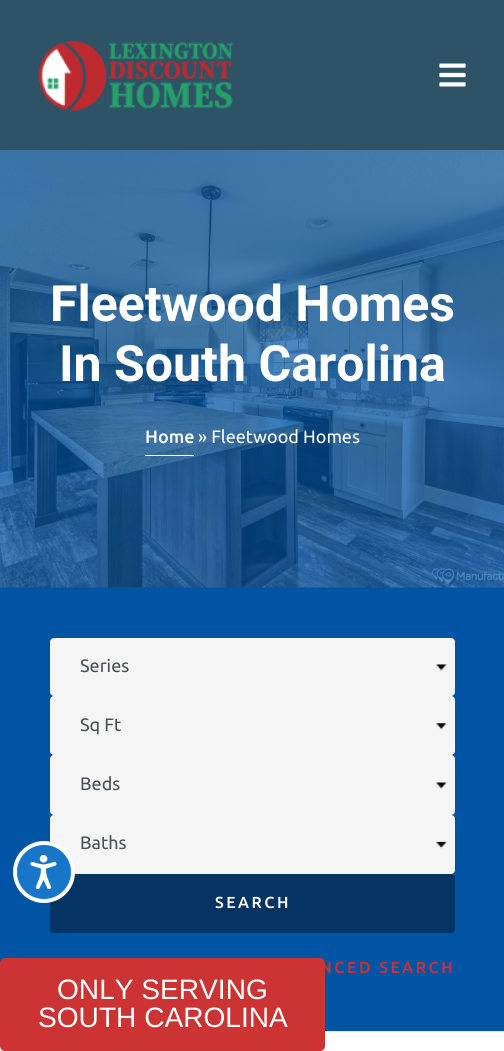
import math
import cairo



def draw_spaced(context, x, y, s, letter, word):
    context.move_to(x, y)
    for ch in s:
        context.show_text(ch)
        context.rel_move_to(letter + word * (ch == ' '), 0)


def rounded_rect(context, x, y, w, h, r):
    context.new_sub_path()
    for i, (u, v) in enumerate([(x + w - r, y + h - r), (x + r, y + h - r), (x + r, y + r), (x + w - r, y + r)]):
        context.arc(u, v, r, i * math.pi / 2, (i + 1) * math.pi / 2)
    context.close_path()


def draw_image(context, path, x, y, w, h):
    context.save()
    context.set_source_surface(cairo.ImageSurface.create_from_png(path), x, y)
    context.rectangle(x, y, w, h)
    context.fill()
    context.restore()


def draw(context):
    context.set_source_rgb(1, 1, 1)
    context.paint()
    context.set_source_rgb(46 / 255, 82 / 255, 102 / 255)
    context.rectangle(0, 0, 504, 150)
    context.fill()
    draw_image(context, "images/1.png", 38, 40, 196, 72)
    draw_image(context, "images/2.png", 439, 63, 27, 24)
    context.set_source_rgb(0, 84 / 255, 163 / 255)
    context.rectangle(0, 588, 504, 443)
    context.fill()
    context.set_source_rgb(245 / 255, 245 / 255, 245 / 255)
    rounded_rect(context, 50, 815, 405, 59, 4)
    context.fill()
    context.set_source_rgb(4 / 255, 52 / 255, 100 / 255)
    rounded_rect(context, 50, 874, 405, 59, 4)
    context.fill()
    context.set_source_rgb(24 / 255, 118 / 255, 201 / 255)
    context.arc(44, 872, 29, 0, 2 * math.pi)
    context.fill_preserve()
    context.set_source_rgb(1, 1, 1)
    context.set_line_width(4)
    context.stroke()
    draw_image(context, "images/3.png", 30, 855, 27, 34)
    context.set_source_rgb(14 / 255, 83 / 255, 145 / 255)
    context.rectangle(0, 587, 504, 1)
    context.fill()
    draw_image(context, "images/4.png", 0, 150, 504, 438)
    context.set_source_rgb(1, 1, 1)
    context.rectangle(145, 455, 49, 1)
    context.fill()
    context.set_source_rgb(229 / 255, 229 / 255, 229 / 255)
    context.rectangle(325, 1031, 179, 1)
    context.fill()
    context.set_source_rgb(245 / 255, 245 / 255, 245 / 255)
    rounded_rect(context, 50, 638, 405, 58, 4)
    context.fill()
    draw_image(context, "images/5.png", 436, 664, 11, 7)
    rounded_rect(context, 50, 696, 405, 59, 4)
    context.fill()
    draw_image(context, "images/6.png", 436, 723, 11, 7)
    rounded_rect(context, 50, 755, 405, 60, 4)
    context.fill()
    draw_image(context, "images/7.png", 436, 782, 11, 7)
    draw_image(context, "images/8.png", 436, 841, 11, 8)
    context.set_source_rgb(204 / 255, 52 / 255, 52 / 255)
    rounded_rect(context, 0, 958, 325, 93, 5)
    context.fill()
    context.select_font_face("Roboto", cairo.FontSlant.NORMAL, cairo.FontWeight.BOLD)
    context.set_font_size(50)
    context.set_source_rgb(1, 1, 1)
    context.move_to(50, 321)
    context.show_text("Fleetwood Homes")
    context.move_to(59, 381)
    context.show_text("In South Carolina")
    context.select_font_face("Ubuntu Medium")
    context.set_font_size(18)
    context.move_to(145, 443)
    context.show_text("Home")
    context.select_font_face("Ubuntu")
    context.move_to(198, 443)
    context.show_text("» Fleetwood Homes")
    context.set_source_rgb(73 / 255, 80 / 255, 87 / 255)
    context.move_to(80, 672)
    context.show_text("Series")
    context.move_to(80, 731)
    context.show_text("Sq Ft")
    context.move_to(80, 790)
    context.show_text("Beds")
    context.move_to(80, 849)
    context.show_text("Baths")
    context.select_font_face("Ubuntu Medium")
    context.set_font_size(16)
    context.set_source_rgb(1, 1, 1)
    draw_spaced(context, 215, 908, "SEARCH", 2.5, 0)
    context.set_source_rgb(204 / 255, 52 / 255, 52 / 255)
    draw_spaced(context, 320, 973, "NCED SEARCH", 2.5, 0)
    context.select_font_face("Liberation Sans")
    context.set_font_size(28.1)
    context.set_source_rgb(1, 1, 1)
    context.move_to(57, 999)
    context.show_text("ONLY SERVING")
    context.move_to(38, 1027)
    context.show_text("SOUTH CAROLINA")


surface = cairo.ImageSurface(cairo.Format.RGB24, 504, 1051)
context = cairo.Context(surface)
options = cairo.FontOptions()
options.set_hint_metrics(cairo.HintMetrics.OFF)
options.set_hint_style(cairo.HintStyle.NONE)
context.set_font_options(options)
context.set_miter_limit(4)
draw(context)
surface.write_to_png("out.png")
